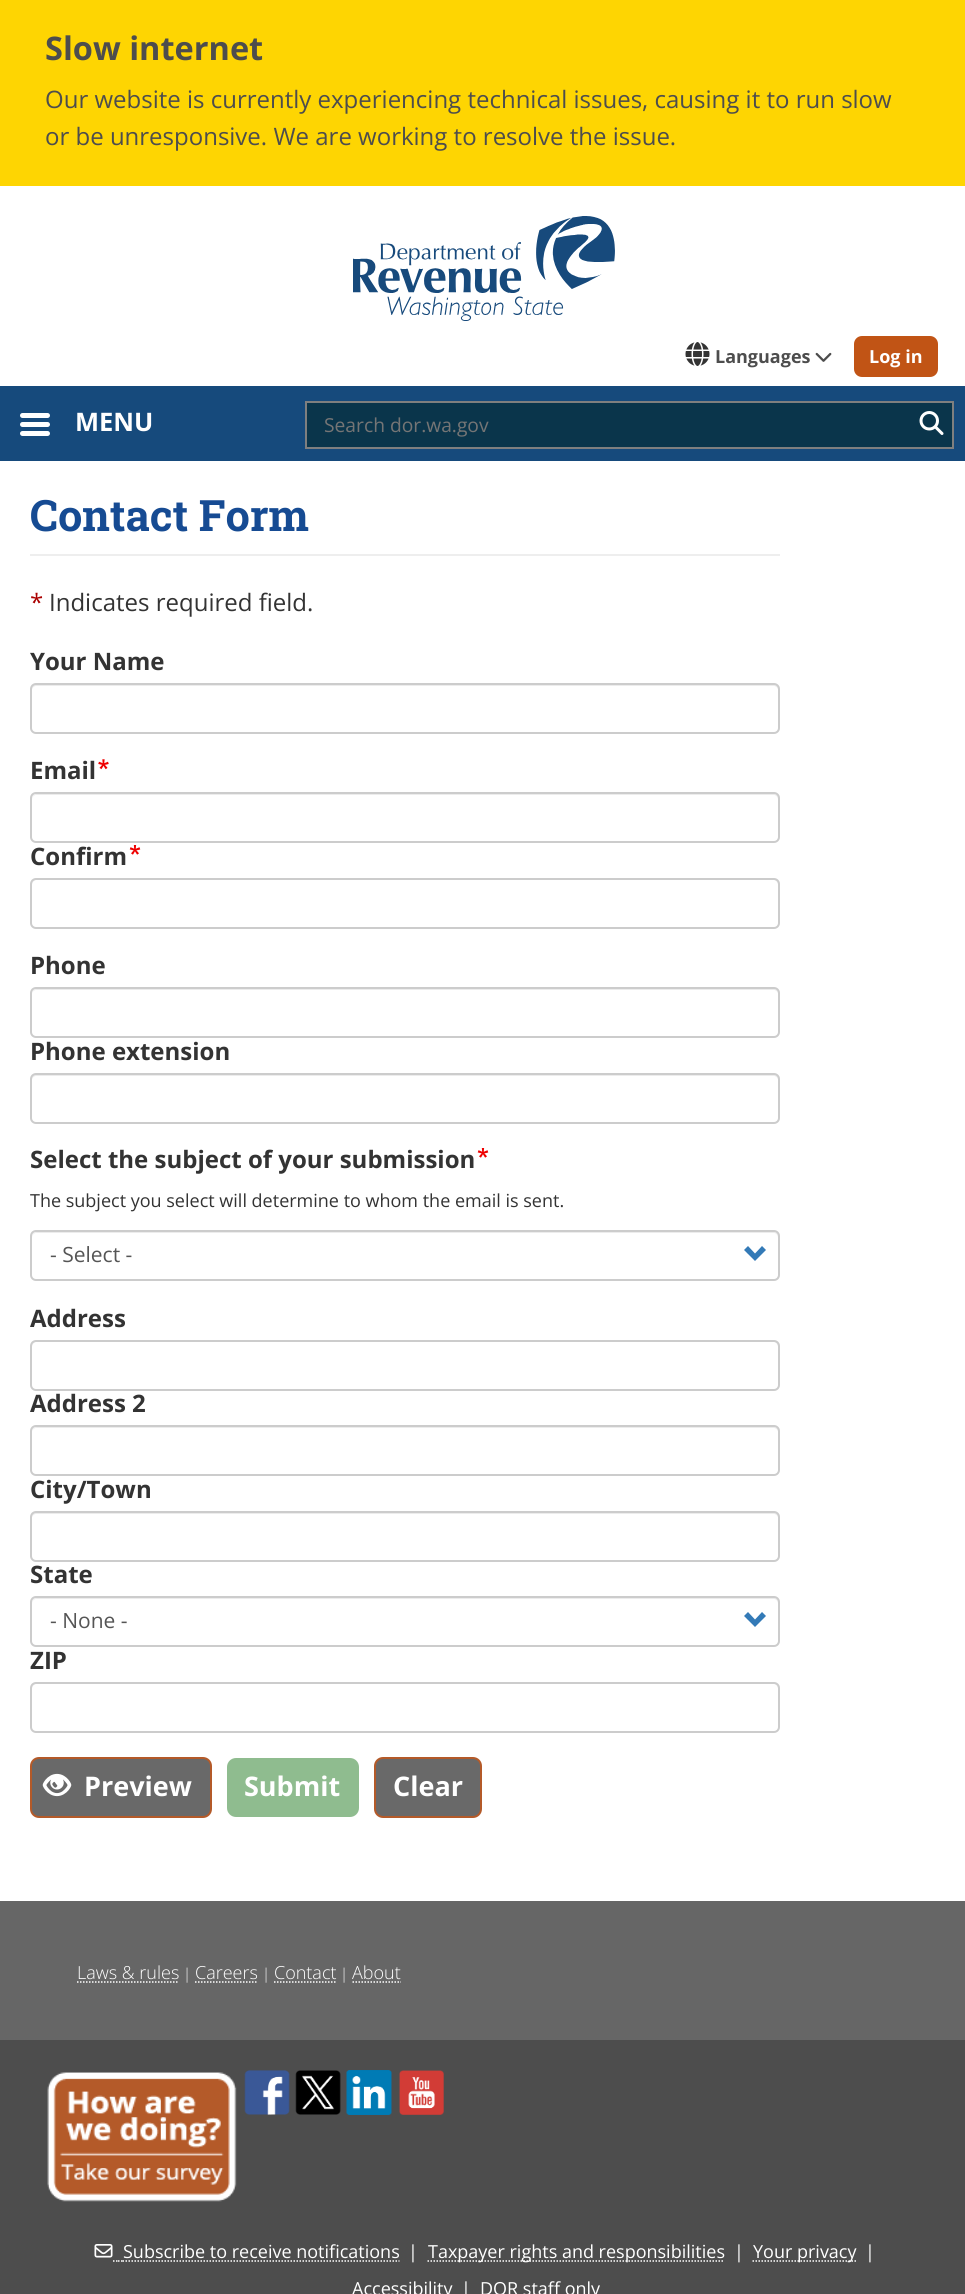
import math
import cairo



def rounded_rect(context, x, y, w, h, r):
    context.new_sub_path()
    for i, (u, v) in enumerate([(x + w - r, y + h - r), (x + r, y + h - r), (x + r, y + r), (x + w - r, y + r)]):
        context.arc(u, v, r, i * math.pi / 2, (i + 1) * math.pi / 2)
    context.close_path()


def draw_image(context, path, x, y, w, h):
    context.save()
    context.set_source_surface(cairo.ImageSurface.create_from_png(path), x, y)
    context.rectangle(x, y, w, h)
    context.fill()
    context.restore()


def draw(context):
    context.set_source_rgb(1, 1, 1)
    context.paint()
    context.set_source_rgb(254 / 255, 213 / 255, 2 / 255)
    context.rectangle(0, 0, 965, 186)
    context.fill()
    draw_image(context, "images/1.png", 353, 216, 262, 105)
    draw_image(context, "images/2.png", 685, 342, 25, 24)
    draw_image(context, "images/3.png", 815, 352, 17, 10)
    context.set_source_rgb(193 / 255, 84 / 255, 21 / 255)
    rounded_rect(context, 854, 336, 84, 41, 8)
    context.fill()
    context.set_source_rgb(22 / 255, 74 / 255, 124 / 255)
    context.rectangle(0, 386, 965, 75)
    context.fill()
    context.set_source_rgb(1, 1, 1)
    rounded_rect(context, 20, 413, 30, 5, 2.5)
    context.fill()
    rounded_rect(context, 20, 422, 30, 5, 2.5)
    context.fill()
    rounded_rect(context, 20, 431, 30, 5, 2.5)
    context.fill()
    context.set_source_rgb(10 / 255, 53 / 255, 75 / 255)
    context.rectangle(306, 402, 647, 46)
    context.fill_preserve()
    context.set_source_rgb(127 / 255, 127 / 255, 127 / 255)
    context.stroke()
    draw_image(context, "images/4.png", 919, 411, 25, 24)
    context.set_source_rgb(238 / 255, 238 / 255, 238 / 255)
    context.rectangle(30, 554, 750, 2)
    context.fill()
    context.set_source_rgb(236 / 255, 236 / 255, 236 / 255)
    context.new_path()
    context.move_to(36, 686)
    context.line_to(774, 686)
    context.curve_to(776, 686, 778, 688, 778, 690)
    context.line_to(778, 730)
    context.curve_to(779, 729, 779, 728, 779, 727)
    context.line_to(779, 689)
    context.curve_to(779, 686, 777, 684, 774, 684)
    context.line_to(37, 684)
    context.curve_to(34, 684, 32, 686, 32, 689)
    context.line_to(32, 690)
    context.curve_to(32, 688, 34, 686, 36, 686)
    context.close_path()
    context.fill()
    rounded_rect(context, 31, 684, 748, 49, 5)
    context.set_source_rgb(204 / 255, 204 / 255, 204 / 255)
    context.stroke()
    draw_image(context, "images/5.png", 98, 759, 11, 11)
    context.set_source_rgb(236 / 255, 236 / 255, 236 / 255)
    context.new_path()
    context.move_to(36, 795)
    context.line_to(774, 795)
    context.curve_to(776, 795, 778, 797, 778, 800)
    context.line_to(778, 838)
    context.line_to(777, 841)
    context.curve_to(778, 840, 779, 838, 779, 837)
    context.line_to(779, 799)
    context.curve_to(779, 796, 777, 794, 774, 794)
    context.line_to(37, 794)
    context.curve_to(34, 794, 32, 796, 32, 799)
    context.line_to(32, 800)
    context.curve_to(32, 797, 34, 795, 36, 795)
    context.close_path()
    context.fill()
    rounded_rect(context, 31, 793, 748, 49, 5)
    context.set_source_rgb(204 / 255, 204 / 255, 204 / 255)
    context.stroke()
    draw_image(context, "images/6.png", 129, 845, 12, 10)
    context.set_source_rgb(236 / 255, 236 / 255, 236 / 255)
    context.new_path()
    context.move_to(36, 880)
    context.line_to(774, 880)
    context.curve_to(776, 880, 778, 883, 778, 885)
    context.line_to(778, 925)
    context.curve_to(779, 924, 779, 923, 779, 922)
    context.line_to(779, 884)
    context.curve_to(779, 881, 777, 879, 774, 879)
    context.line_to(37, 879)
    context.curve_to(34, 879, 32, 881, 32, 884)
    context.line_to(32, 885)
    context.curve_to(32, 883, 34, 880, 36, 880)
    context.close_path()
    context.fill()
    rounded_rect(context, 31, 879, 748, 49, 5)
    context.set_source_rgb(204 / 255, 204 / 255, 204 / 255)
    context.stroke()
    context.set_source_rgb(236 / 255, 236 / 255, 236 / 255)
    context.new_path()
    context.move_to(36, 990)
    context.line_to(774, 990)
    context.curve_to(776, 990, 778, 992, 778, 994)
    context.line_to(778, 1035)
    context.curve_to(779, 1034, 779, 1033, 779, 1032)
    context.line_to(779, 994)
    context.curve_to(779, 991, 777, 989, 774, 989)
    context.line_to(37, 989)
    context.curve_to(34, 989, 32, 991, 32, 994)
    context.curve_to(32, 992, 34, 990, 36, 990)
    context.close_path()
    context.fill()
    rounded_rect(context, 31, 988, 748, 49, 5)
    context.set_source_rgb(204 / 255, 204 / 255, 204 / 255)
    context.stroke()
    context.set_source_rgb(236 / 255, 236 / 255, 236 / 255)
    context.new_path()
    context.move_to(36, 1076)
    context.line_to(774, 1076)
    context.curve_to(776, 1076, 778, 1078, 778, 1080)
    context.line_to(778, 1120)
    context.curve_to(779, 1119, 779, 1118, 779, 1117)
    context.line_to(779, 1079)
    context.curve_to(779, 1076, 777, 1074, 774, 1074)
    context.line_to(37, 1074)
    context.curve_to(34, 1074, 32, 1076, 32, 1079)
    context.line_to(32, 1080)
    context.curve_to(32, 1078, 34, 1076, 36, 1076)
    context.close_path()
    context.fill()
    rounded_rect(context, 31, 1074, 748, 49, 5)
    context.set_source_rgb(204 / 255, 204 / 255, 204 / 255)
    context.stroke()
    draw_image(context, "images/6.png", 477, 1148, 12, 10)
    context.set_source_rgb(236 / 255, 236 / 255, 236 / 255)
    context.new_path()
    context.move_to(36, 1233)
    context.line_to(774, 1233)
    context.curve_to(776, 1233, 778, 1235, 778, 1238)
    context.line_to(778, 1276)
    context.line_to(777, 1279)
    context.curve_to(778, 1278, 779, 1276, 779, 1275)
    context.line_to(779, 1237)
    context.curve_to(779, 1234, 777, 1232, 774, 1232)
    context.line_to(37, 1232)
    context.curve_to(34, 1232, 32, 1234, 32, 1237)
    context.line_to(32, 1238)
    context.curve_to(32, 1235, 34, 1233, 36, 1233)
    context.close_path()
    context.fill()
    rounded_rect(context, 31, 1231, 748, 49, 5)
    context.set_source_rgb(204 / 255, 204 / 255, 204 / 255)
    context.stroke()
    context.set_source_rgb(51 / 255, 122 / 255, 183 / 255)
    context.new_path()
    context.move_to(766, 1250)
    context.line_to(755, 1261)
    context.line_to(744, 1250)
    context.line_to(748, 1246)
    context.line_to(755, 1253.5)
    context.line_to(762, 1246)
    context.close_path()
    context.fill()
    context.set_source_rgb(236 / 255, 236 / 255, 236 / 255)
    context.new_path()
    context.move_to(36, 1342)
    context.line_to(774, 1342)
    context.curve_to(776, 1342, 778, 1345, 778, 1347)
    context.line_to(778, 1387)
    context.curve_to(779, 1386, 779, 1385, 779, 1384)
    context.line_to(779, 1346)
    context.curve_to(779, 1343, 777, 1341, 774, 1341)
    context.line_to(37, 1341)
    context.curve_to(34, 1341, 32, 1343, 32, 1346)
    context.line_to(32, 1347)
    context.curve_to(32, 1345, 34, 1342, 36, 1342)
    context.close_path()
    context.fill()
    rounded_rect(context, 31, 1341, 748, 49, 5)
    context.set_source_rgb(204 / 255, 204 / 255, 204 / 255)
    context.stroke()
    context.set_source_rgb(236 / 255, 236 / 255, 236 / 255)
    context.new_path()
    context.move_to(36, 1428)
    context.line_to(774, 1428)
    context.curve_to(776, 1428, 778, 1430, 778, 1432)
    context.line_to(778, 1473)
    context.curve_to(779, 1472, 779, 1471, 779, 1470)
    context.line_to(779, 1432)
    context.curve_to(779, 1429, 777, 1427, 774, 1427)
    context.line_to(37, 1427)
    context.curve_to(34, 1427, 32, 1429, 32, 1432)
    context.curve_to(32, 1430, 34, 1428, 36, 1428)
    context.close_path()
    context.fill()
    rounded_rect(context, 31, 1426, 748, 49, 5)
    context.set_source_rgb(204 / 255, 204 / 255, 204 / 255)
    context.stroke()
    context.set_source_rgb(236 / 255, 236 / 255, 236 / 255)
    context.new_path()
    context.move_to(36, 1514)
    context.line_to(774, 1514)
    context.curve_to(776, 1514, 778, 1516, 778, 1518)
    context.line_to(778, 1558)
    context.curve_to(779, 1557, 779, 1556, 779, 1555)
    context.line_to(779, 1517)
    context.curve_to(779, 1514, 777, 1512, 774, 1512)
    context.line_to(37, 1512)
    context.curve_to(34, 1512, 32, 1514, 32, 1517)
    context.line_to(32, 1518)
    context.curve_to(32, 1516, 34, 1514, 36, 1514)
    context.close_path()
    context.fill()
    rounded_rect(context, 31, 1512, 748, 49, 5)
    context.set_source_rgb(204 / 255, 204 / 255, 204 / 255)
    context.stroke()
    context.set_source_rgb(236 / 255, 236 / 255, 236 / 255)
    context.new_path()
    context.move_to(36, 1599)
    context.line_to(774, 1599)
    context.curve_to(776, 1599, 778, 1601, 778, 1604)
    context.line_to(778, 1642)
    context.line_to(777, 1645)
    context.curve_to(778, 1644, 779, 1642, 779, 1641)
    context.line_to(779, 1603)
    context.curve_to(779, 1600, 777, 1598, 774, 1598)
    context.line_to(37, 1598)
    context.curve_to(34, 1598, 32, 1600, 32, 1603)
    context.line_to(32, 1604)
    context.curve_to(32, 1601, 34, 1599, 36, 1599)
    context.close_path()
    context.fill()
    rounded_rect(context, 31, 1597, 748, 49, 5)
    context.set_source_rgb(204 / 255, 204 / 255, 204 / 255)
    context.stroke()
    context.set_source_rgb(51 / 255, 122 / 255, 183 / 255)
    context.new_path()
    context.move_to(766, 1616)
    context.line_to(755, 1627)
    context.line_to(744, 1616)
    context.line_to(748, 1612)
    context.line_to(755, 1619.5)
    context.line_to(762, 1612)
    context.close_path()
    context.fill()
    context.set_source_rgb(236 / 255, 236 / 255, 236 / 255)
    context.new_path()
    context.move_to(36, 1684)
    context.line_to(774, 1684)
    context.curve_to(776, 1684, 778, 1687, 778, 1689)
    context.line_to(778, 1729)
    context.curve_to(779, 1728, 779, 1727, 779, 1726)
    context.line_to(779, 1688)
    context.curve_to(779, 1685, 777, 1683, 774, 1683)
    context.line_to(37, 1683)
    context.curve_to(34, 1683, 32, 1685, 32, 1688)
    context.line_to(32, 1689)
    context.curve_to(32, 1687, 34, 1684, 36, 1684)
    context.close_path()
    context.fill()
    rounded_rect(context, 31, 1683, 748, 49, 5)
    context.set_source_rgb(204 / 255, 204 / 255, 204 / 255)
    context.stroke()
    context.set_source_rgb(105 / 255, 105 / 255, 105 / 255)
    rounded_rect(context, 31, 1758, 180, 59, 8)
    context.fill_preserve()
    context.set_source_rgb(180 / 255, 90 / 255, 41 / 255)
    context.stroke()
    draw_image(context, "images/7.png", 42, 1773, 30, 24)
    context.set_source_rgb(143 / 255, 188 / 255, 143 / 255)
    rounded_rect(context, 227, 1758, 132, 59, 9)
    context.fill()
    context.set_source_rgb(105 / 255, 105 / 255, 105 / 255)
    rounded_rect(context, 375, 1758, 106, 59, 8)
    context.fill_preserve()
    context.set_source_rgb(180 / 255, 90 / 255, 41 / 255)
    context.stroke()
    context.set_source_rgb(102 / 255, 102 / 255, 102 / 255)
    context.rectangle(0, 1901, 965, 139)
    context.fill()
    context.new_path()
    context.move_to(77, 1982)
    context.line_to(179, 1982)
    context.set_source_rgb(1, 1, 1)
    context.set_line_width(1.5)
    context.set_dash([1.5, 1.5])
    context.stroke()
    context.new_path()
    context.move_to(195, 1982)
    context.line_to(258, 1982)
    context.stroke()
    context.new_path()
    context.move_to(274, 1982)
    context.line_to(336.5, 1982)
    context.stroke()
    context.new_path()
    context.move_to(352.5, 1982)
    context.line_to(401, 1982)
    context.stroke()
    context.set_source_rgb(77 / 255, 77 / 255, 77 / 255)
    context.rectangle(0, 2040, 965, 254)
    context.fill()
    draw_image(context, "images/8.png", 47, 2072, 190, 130)
    draw_image(context, "images/9.png", 244, 2070, 46, 45)
    draw_image(context, "images/10.png", 295, 2070, 46, 45)
    draw_image(context, "images/11.png", 346, 2070, 46, 45)
    draw_image(context, "images/12.png", 399, 2070, 45, 45)
    draw_image(context, "images/13.png", 94, 2244, 19, 14)
    context.new_path()
    context.move_to(113, 2261)
    context.line_to(114.5, 2261)
    context.move_to(116, 2261)
    context.line_to(117.5, 2261)
    context.move_to(118, 2261)
    context.line_to(119.5, 2261)
    context.move_to(121, 2261)
    context.line_to(122.5, 2261)
    context.set_source_rgb(1, 1, 1)
    context.set_dash([])
    context.stroke()
    context.new_path()
    context.move_to(122.5, 2261)
    context.line_to(399.5, 2261)
    context.set_dash([1.5, 1.5])
    context.stroke()
    context.new_path()
    context.move_to(427.5, 2261)
    context.line_to(724.5, 2261)
    context.stroke()
    context.new_path()
    context.move_to(752.5, 2261)
    context.line_to(856, 2261)
    context.stroke()
    context.select_font_face("Open Sans", cairo.FontSlant.NORMAL, cairo.FontWeight.BOLD)
    context.set_font_size(32.5)
    context.set_source_rgb(77 / 255, 77 / 255, 77 / 255)
    context.move_to(45, 60)
    context.show_text("Slow internet")
    context.select_font_face("Open Sans")
    context.set_font_size(24)
    context.move_to(45, 108)
    context.show_text("Our website is currently experiencing technical issues, causing it to run slow")
    context.move_to(45, 145)
    context.show_text("or be unresponsive. We are working to resolve the issue.")
    context.select_font_face("Open Sans", cairo.FontSlant.NORMAL, cairo.FontWeight.BOLD)
    context.set_font_size(18)
    context.move_to(715, 363)
    context.show_text("Languages")
    context.set_source_rgb(1, 1, 1)
    context.move_to(869, 363)
    context.show_text("Log in")
    context.set_font_size(25.5)
    context.move_to(75, 431)
    context.show_text("MENU")
    context.select_font_face("Open Sans")
    context.set_font_size(19.25)
    context.set_source_rgb(117 / 255, 117 / 255, 117 / 255)
    context.move_to(324, 432)
    context.show_text("Search dor.wa.gov")
    context.select_font_face("Roboto Slab", cairo.FontSlant.NORMAL, cairo.FontWeight.BOLD)
    context.set_font_size(43.25)
    context.set_source_rgb(22 / 255, 75 / 255, 147 / 255)
    context.move_to(30, 531)
    context.show_text("Contact Form")
    context.select_font_face("Open Sans")
    context.set_font_size(24)
    context.set_source_rgb(170 / 255, 0, 0)
    context.move_to(30, 611)
    context.show_text("*")
    context.set_source_rgb(51 / 255, 51 / 255, 51 / 255)
    context.move_to(49, 611)
    context.show_text("Indicates required field.")
    context.select_font_face("Open Sans", cairo.FontSlant.NORMAL, cairo.FontWeight.BOLD)
    context.move_to(30, 670)
    context.show_text("Your Name")
    context.move_to(30, 779)
    context.show_text("Email")
    context.move_to(30, 865)
    context.show_text("Confirm")
    context.move_to(30, 974)
    context.show_text("Phone")
    context.move_to(30, 1060)
    context.show_text("Phone extension")
    context.move_to(30, 1168)
    context.show_text("Select the subject of your submission")
    context.select_font_face("Open Sans")
    context.set_font_size(18)
    context.move_to(30, 1207)
    context.show_text("The subject you select will determine to whom the email is sent.")
    context.set_font_size(21)
    context.set_source_rgb(85 / 255, 85 / 255, 85 / 255)
    context.move_to(50, 1262)
    context.show_text("- Select -")
    context.select_font_face("Open Sans", cairo.FontSlant.NORMAL, cairo.FontWeight.BOLD)
    context.set_font_size(24)
    context.set_source_rgb(51 / 255, 51 / 255, 51 / 255)
    context.move_to(30, 1327)
    context.show_text("Address")
    context.move_to(30, 1412)
    context.show_text("Address 2")
    context.move_to(30, 1498)
    context.show_text("City/Town")
    context.move_to(30, 1583)
    context.show_text("State")
    context.select_font_face("Open Sans")
    context.set_font_size(21)
    context.set_source_rgb(85 / 255, 85 / 255, 85 / 255)
    context.move_to(50, 1628)
    context.show_text("- None -")
    context.select_font_face("Open Sans", cairo.FontSlant.NORMAL, cairo.FontWeight.BOLD)
    context.set_font_size(24)
    context.set_source_rgb(51 / 255, 51 / 255, 51 / 255)
    context.move_to(30, 1669)
    context.show_text("ZIP")
    context.set_font_size(27)
    context.set_source_rgb(1, 1, 1)
    context.move_to(84, 1796)
    context.show_text("Preview")
    context.move_to(244, 1796)
    context.show_text("Submit")
    context.move_to(393, 1796)
    context.show_text("Clear")
    context.select_font_face("Open Sans Light")
    context.set_font_size(18)
    context.move_to(77, 1979)
    context.show_text("Laws & rules")
    context.set_font_size(15)
    context.move_to(183, 1979)
    context.show_text("|")
    context.set_font_size(18)
    context.move_to(195, 1979)
    context.show_text("Careers")
    context.set_font_size(15)
    context.move_to(262, 1979)
    context.show_text("|")
    context.set_font_size(18)
    context.move_to(274, 1979)
    context.show_text("Contact")
    context.set_font_size(15)
    context.move_to(340, 1979)
    context.show_text("|")
    context.set_font_size(18)
    context.move_to(352, 1979)
    context.show_text("About")
    context.select_font_face("Open Sans")
    context.move_to(123, 2258)
    context.show_text("Subscribe to receive notifications")
    context.move_to(408, 2258)
    context.show_text("|")
    context.move_to(428, 2258)
    context.show_text("Taxpayer rights and responsibilities")
    context.move_to(734, 2258)
    context.show_text("|")
    context.move_to(753, 2258)
    context.show_text("Your privacy")
    context.move_to(865, 2258)
    context.show_text("|")
    context.move_to(352, 2295)
    context.show_text("Accessibility")
    context.move_to(461, 2295)
    context.show_text("|")
    context.move_to(480, 2295)
    context.show_text("DOR staff only")


surface = cairo.ImageSurface(cairo.Format.RGB24, 965, 2294)
context = cairo.Context(surface)
options = cairo.FontOptions()
options.set_hint_metrics(cairo.HintMetrics.OFF)
options.set_hint_style(cairo.HintStyle.NONE)
context.set_font_options(options)
context.set_miter_limit(4)
draw(context)
surface.write_to_png("out.png")
